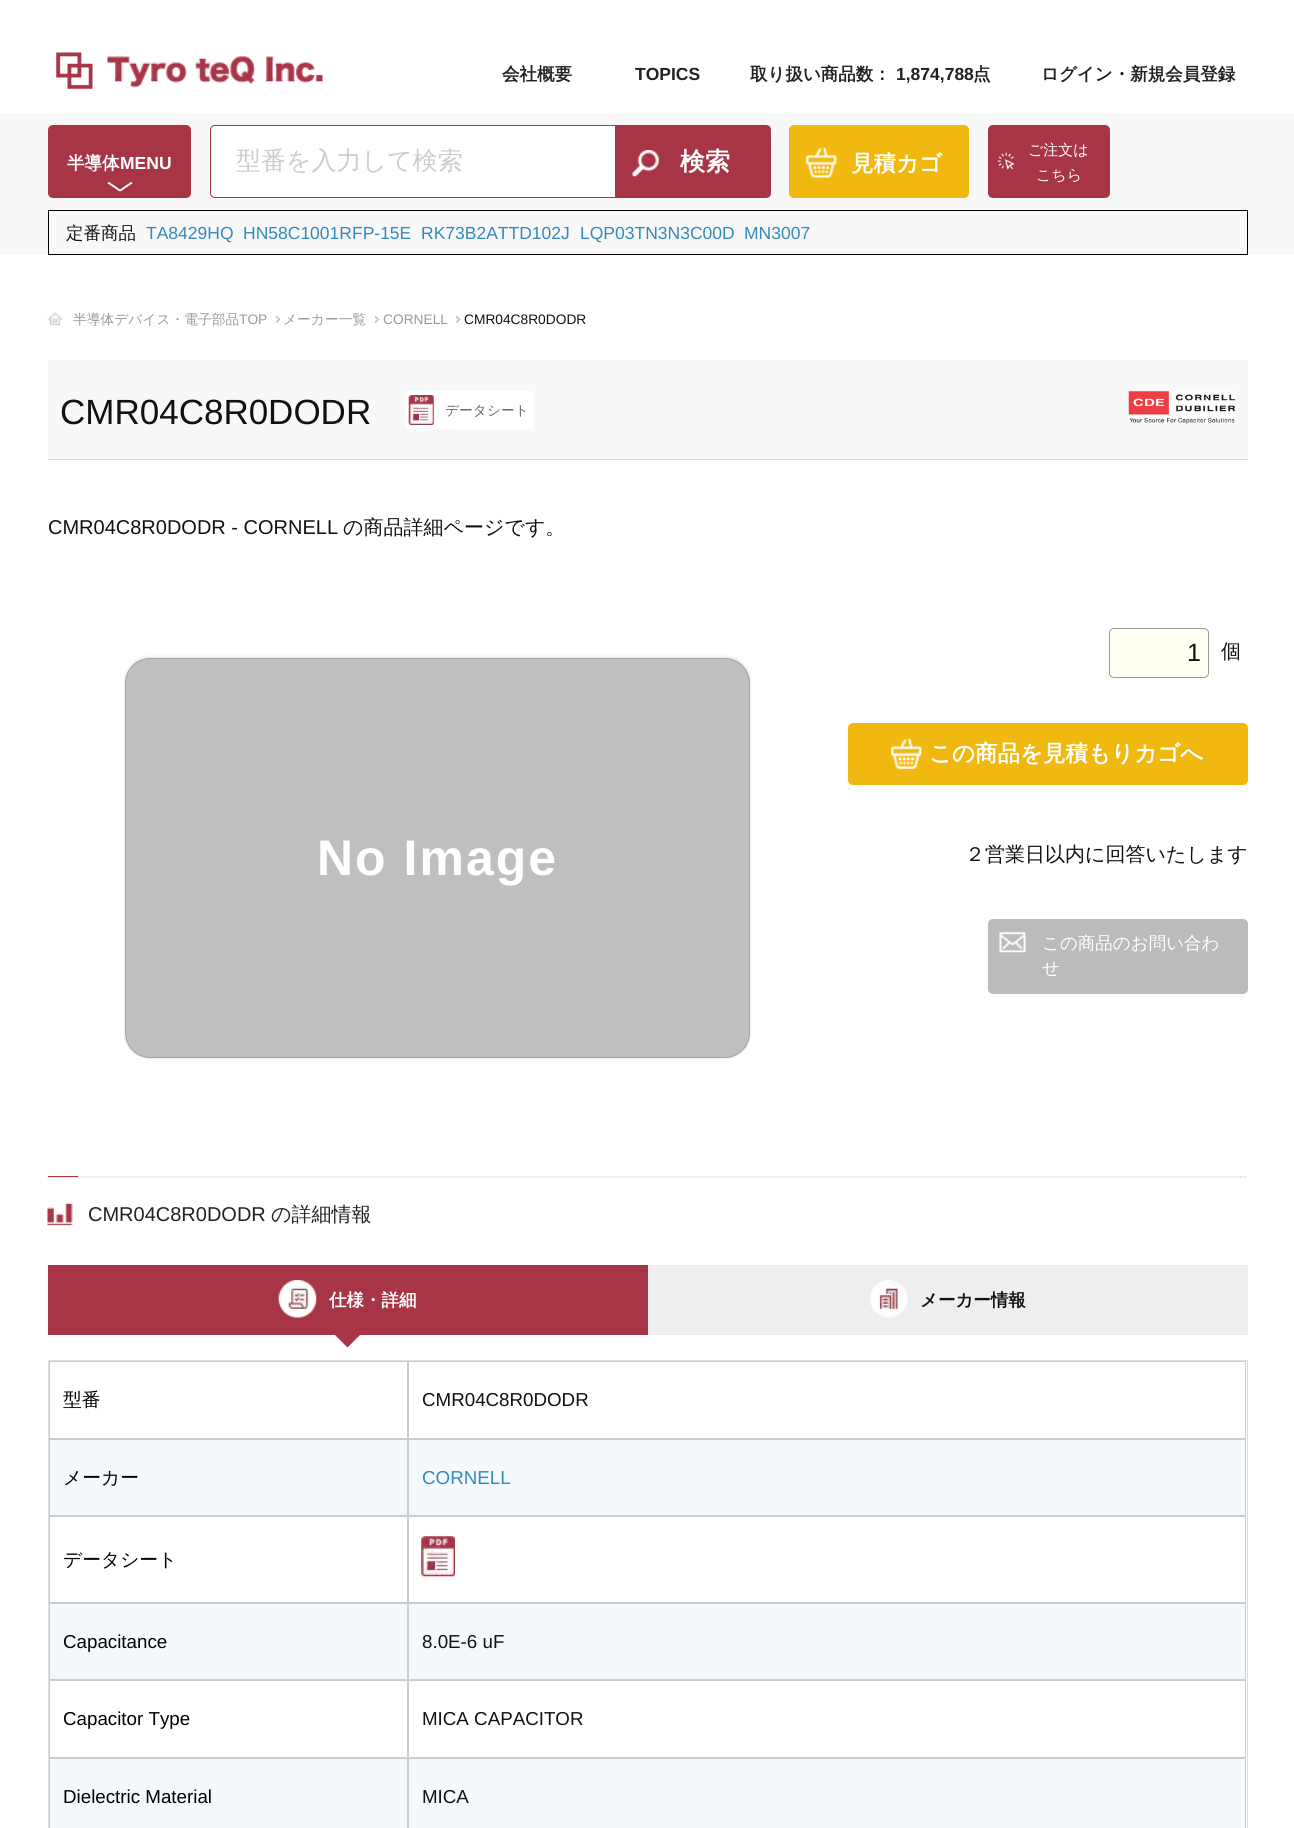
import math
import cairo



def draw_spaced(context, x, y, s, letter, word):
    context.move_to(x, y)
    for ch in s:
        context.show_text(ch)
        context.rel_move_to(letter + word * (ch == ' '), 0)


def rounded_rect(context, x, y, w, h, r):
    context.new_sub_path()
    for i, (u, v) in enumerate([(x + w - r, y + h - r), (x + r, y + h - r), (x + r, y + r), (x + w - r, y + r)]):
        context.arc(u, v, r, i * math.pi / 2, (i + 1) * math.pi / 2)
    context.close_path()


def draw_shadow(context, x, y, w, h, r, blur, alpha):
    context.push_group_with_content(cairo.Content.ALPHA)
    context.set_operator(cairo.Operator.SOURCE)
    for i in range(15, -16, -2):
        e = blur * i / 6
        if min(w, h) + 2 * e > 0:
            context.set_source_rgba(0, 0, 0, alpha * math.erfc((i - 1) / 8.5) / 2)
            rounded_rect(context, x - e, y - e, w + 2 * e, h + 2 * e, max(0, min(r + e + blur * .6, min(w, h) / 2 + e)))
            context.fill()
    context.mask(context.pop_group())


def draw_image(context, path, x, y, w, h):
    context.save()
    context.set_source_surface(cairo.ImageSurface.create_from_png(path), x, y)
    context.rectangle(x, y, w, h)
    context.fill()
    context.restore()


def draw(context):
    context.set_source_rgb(1, 1, 1)
    context.paint()
    draw_image(context, "images/1.png", 56, 52, 267, 37)
    context.set_source_rgb(248 / 255, 248 / 255, 248 / 255)
    context.rectangle(0, 113, 1294, 142)
    context.fill()
    context.set_source_rgb(168 / 255, 53 / 255, 70 / 255)
    rounded_rect(context, 48, 125, 143, 73, 5)
    context.fill()
    draw_image(context, "images/2.png", 107, 181, 26, 11)
    context.set_source_rgb(1, 1, 1)
    context.new_path()
    context.move_to(215, 125.5)
    context.line_to(617.5, 125.5)
    context.line_to(617.5, 197.5)
    context.line_to(215, 197.5)
    context.curve_to(212.5, 197.5, 210.5, 195.5, 210.5, 193)
    context.line_to(210.5, 130)
    context.curve_to(210.5, 127.5, 212.5, 125.5, 215, 125.5)
    context.close_path()
    context.fill_preserve()
    context.set_source_rgb(168 / 255, 53 / 255, 70 / 255)
    context.set_line_width(1)
    context.stroke()
    context.new_path()
    context.move_to(615, 125)
    context.line_to(766, 125)
    context.curve_to(769, 125, 771, 127, 771, 130)
    context.line_to(771, 193)
    context.curve_to(771, 196, 769, 198, 766, 198)
    context.line_to(615, 198)
    context.close_path()
    context.fill()
    draw_image(context, "images/3.png", 632, 150, 27, 27)
    context.set_source_rgb(241 / 255, 185 / 255, 15 / 255)
    rounded_rect(context, 789, 125, 180, 73, 5)
    context.fill()
    draw_image(context, "images/4.png", 806, 147, 31, 31)
    context.set_source_rgb(168 / 255, 53 / 255, 70 / 255)
    rounded_rect(context, 988, 125, 122, 73, 5)
    context.fill()
    draw_image(context, "images/5.png", 997, 152, 18, 18)
    context.rectangle(48.5, 210.5, 1199, 44)
    context.set_source_rgb(0, 0, 0)
    context.stroke()
    draw_image(context, "images/6.png", 47, 312, 16, 14)
    draw_image(context, "images/7.png", 276, 316, 4, 7)
    draw_image(context, "images/8.png", 375, 316, 4, 7)
    draw_image(context, "images/7.png", 456, 316, 4, 7)
    context.set_source_rgb(248 / 255, 248 / 255, 248 / 255)
    context.rectangle(48, 360, 1200, 99)
    context.fill()
    context.set_source_rgb(221 / 255, 221 / 255, 221 / 255)
    context.rectangle(48, 459, 1200, 1)
    context.fill()
    context.set_source_rgb(1, 1, 1)
    rounded_rect(context, 405, 391, 129, 38, 2.5)
    context.fill()
    draw_image(context, "images/9.png", 408, 395, 26, 30)
    draw_image(context, "images/10.png", 1128, 391, 107, 33)
    context.set_source_rgb(236 / 255, 236 / 255, 236 / 255)
    draw_shadow(context, 124, 656, 627, 403, 26, 1, 1)
    context.set_source_rgb(191 / 255, 191 / 255, 191 / 255)
    rounded_rect(context, 125.5, 658.5, 624, 399, 24.5)
    context.fill_preserve()
    context.set_source_rgb(165 / 255, 165 / 255, 165 / 255)
    context.stroke()
    context.set_source_rgb(1, 1, 242 / 255)
    rounded_rect(context, 1109.5, 628.5, 99, 49, 4.5)
    context.fill_preserve()
    context.set_source_rgb(153 / 255, 153 / 255, 153 / 255)
    context.stroke()
    context.set_source_rgb(241 / 255, 185 / 255, 15 / 255)
    rounded_rect(context, 848, 723, 400, 62, 5)
    context.fill()
    draw_image(context, "images/11.png", 891, 738, 31, 31)
    context.set_source_rgb(187 / 255, 187 / 255, 187 / 255)
    rounded_rect(context, 988, 919, 260, 75, 5)
    context.fill()
    draw_image(context, "images/12.png", 999, 932, 27, 21)
    draw_image(context, "images/13.png", 47, 1203, 26, 23)
    context.new_path()
    context.move_to(47.5, 1177)
    context.line_to(1247.5, 1177)
    context.set_source_rgb(204 / 255, 204 / 255, 204 / 255)
    context.set_line_width(1.2)
    context.set_dash([1.25, 1.25])
    context.stroke()
    context.set_source_rgb(168 / 255, 53 / 255, 70 / 255)
    context.rectangle(48, 1176, 30, 1)
    context.fill()
    context.rectangle(48, 1265, 600, 70)
    context.fill()
    draw_image(context, "images/14.png", 278, 1280, 39, 38)
    context.new_path()
    context.move_to(335, 1335)
    context.line_to(360, 1335)
    context.line_to(347.5, 1347.5)
    context.close_path()
    context.fill()
    context.set_source_rgb(238 / 255, 238 / 255, 238 / 255)
    context.rectangle(648, 1265, 600, 70)
    context.fill()
    draw_image(context, "images/15.png", 870, 1280, 38, 38)
    context.rectangle(48.5, 1360.5, 1199, 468)
    context.set_source_rgb(221 / 255, 221 / 255, 221 / 255)
    context.set_line_width(1)
    context.set_dash([])
    context.stroke()
    context.rectangle(49.5, 1361.5, 358, 77)
    context.set_source_rgb(204 / 255, 204 / 255, 204 / 255)
    context.stroke()
    context.rectangle(408.5, 1361.5, 837, 77)
    context.stroke()
    context.set_source_rgb(244 / 255, 249 / 255, 253 / 255)
    context.rectangle(50, 1440, 1195, 75)
    context.fill()
    context.rectangle(49.5, 1439.5, 358, 76)
    context.set_source_rgb(204 / 255, 204 / 255, 204 / 255)
    context.stroke()
    context.rectangle(408.5, 1439.5, 837, 76)
    context.stroke()
    context.rectangle(49.5, 1516.5, 358, 86)
    context.stroke()
    context.rectangle(408.5, 1516.5, 837, 86)
    context.stroke()
    draw_image(context, "images/16.png", 421, 1536, 34, 41)
    context.set_source_rgb(244 / 255, 249 / 255, 253 / 255)
    context.rectangle(50, 1604, 1195, 75)
    context.fill()
    context.rectangle(49.5, 1603.5, 358, 76)
    context.set_source_rgb(204 / 255, 204 / 255, 204 / 255)
    context.stroke()
    context.rectangle(408.5, 1603.5, 837, 76)
    context.stroke()
    context.rectangle(49.5, 1680.5, 358, 77)
    context.stroke()
    context.rectangle(408.5, 1680.5, 837, 77)
    context.stroke()
    context.set_source_rgb(244 / 255, 249 / 255, 253 / 255)
    context.rectangle(50, 1759, 1195, 69)
    context.fill()
    context.rectangle(49.5, 1758.5, 358, 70)
    context.set_source_rgb(204 / 255, 204 / 255, 204 / 255)
    context.stroke()
    context.rectangle(408.5, 1758.5, 837, 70)
    context.stroke()
    context.select_font_face("WenQuanYi Zen Hei", cairo.FontSlant.NORMAL, cairo.FontWeight.BOLD)
    context.set_font_size(17.5)
    context.set_source_rgb(34 / 255, 34 / 255, 34 / 255)
    context.move_to(502, 80)
    context.show_text("会社概要")
    context.select_font_face("Liberation Sans", cairo.FontSlant.NORMAL, cairo.FontWeight.BOLD)
    context.move_to(635, 80)
    context.show_text("TOPICS")
    context.select_font_face("WenQuanYi Zen Hei", cairo.FontSlant.NORMAL, cairo.FontWeight.BOLD)
    context.move_to(750, 80)
    context.show_text("取り扱い商品数：")
    context.select_font_face("Liberation Sans", cairo.FontSlant.NORMAL, cairo.FontWeight.BOLD)
    context.move_to(896, 80)
    context.show_text("1,874,788")
    context.select_font_face("WenQuanYi Zen Hei", cairo.FontSlant.NORMAL, cairo.FontWeight.BOLD)
    context.move_to(973, 80)
    context.show_text("点")
    context.move_to(1041, 80)
    context.show_text("ログイン・新規会員登録")
    context.set_source_rgb(1, 1, 1)
    context.move_to(67, 169)
    context.show_text("半導体")
    context.select_font_face("Liberation Sans", cairo.FontSlant.NORMAL, cairo.FontWeight.BOLD)
    context.move_to(120, 169)
    context.show_text("MENU")
    context.select_font_face("WenQuanYi Zen Hei Medium")
    context.set_font_size(25)
    context.set_source_rgb(204 / 255, 204 / 255, 204 / 255)
    context.move_to(236, 169)
    context.show_text("型番を入力して検索")
    context.select_font_face("WenQuanYi Zen Hei", cairo.FontSlant.NORMAL, cairo.FontWeight.BOLD)
    context.set_source_rgb(1, 1, 1)
    context.move_to(680, 170)
    context.show_text("検索")
    context.set_font_size(22.5)
    context.move_to(851, 171)
    context.show_text("見積カゴ")
    context.select_font_face("WenQuanYi Zen Hei Medium")
    context.set_font_size(15)
    context.move_to(1028, 155)
    context.show_text("ご注文は")
    context.move_to(1036, 180)
    context.show_text("こちら")
    context.set_font_size(17.5)
    context.set_source_rgb(17 / 255, 17 / 255, 17 / 255)
    context.move_to(66, 239)
    context.show_text("定番商品")
    context.select_font_face("Liberation Sans")
    context.set_source_rgb(53 / 255, 137 / 255, 186 / 255)
    context.move_to(146, 239)
    context.show_text("TA8429HQ")
    context.move_to(243, 239)
    context.show_text("HN58C1001RFP-15E")
    context.move_to(421, 239)
    context.show_text("RK73B2ATTD102J")
    context.move_to(580, 239)
    context.show_text("LQP03TN3N3C00D")
    context.move_to(744, 239)
    context.show_text("MN3007")
    context.select_font_face("WenQuanYi Zen Hei Medium")
    context.set_font_size(13.75)
    context.set_source_rgb(153 / 255, 153 / 255, 153 / 255)
    context.move_to(73, 324)
    context.show_text("半導体デバイス・電子部品")
    context.select_font_face("Liberation Sans")
    context.move_to(239, 324)
    context.show_text("TOP")
    context.select_font_face("WenQuanYi Zen Hei Medium")
    context.move_to(283, 324)
    context.show_text("メーカー一覧")
    context.select_font_face("Liberation Sans")
    context.move_to(383, 324)
    context.show_text("CORNELL")
    context.set_source_rgb(17 / 255, 17 / 255, 17 / 255)
    context.move_to(464, 324)
    context.show_text("CMR04C8R0DODR")
    context.set_font_size(35)
    context.move_to(60, 424)
    context.show_text("CMR04C8R0DODR")
    context.select_font_face("WenQuanYi Zen Hei Medium")
    context.set_font_size(13.75)
    context.set_source_rgb(102 / 255, 102 / 255, 102 / 255)
    context.move_to(445, 415)
    context.show_text("データシート")
    context.select_font_face("Liberation Sans")
    context.set_font_size(20)
    context.set_source_rgb(17 / 255, 17 / 255, 17 / 255)
    context.move_to(48, 534)
    context.show_text("CMR04C8R0DODR - CORNELL")
    context.select_font_face("WenQuanYi Zen Hei Medium")
    context.move_to(343, 534)
    context.show_text("の商品詳細ページです。")
    context.select_font_face("Liberation Sans", cairo.FontSlant.NORMAL, cairo.FontWeight.BOLD)
    context.set_font_size(50)
    context.set_source_rgb(1, 1, 1)
    draw_spaced(context, 317, 875, "No Image", 2, 0)
    context.select_font_face("Liberation Sans")
    context.set_font_size(25)
    context.set_source_rgb(17 / 255, 17 / 255, 17 / 255)
    context.move_to(1187, 661)
    context.show_text("1")
    context.select_font_face("WenQuanYi Zen Hei Medium")
    context.set_font_size(20)
    context.move_to(1221, 658)
    context.show_text("個")
    context.select_font_face("WenQuanYi Zen Hei", cairo.FontSlant.NORMAL, cairo.FontWeight.BOLD)
    context.set_font_size(22.5)
    context.set_source_rgb(1, 1, 1)
    context.move_to(929, 761)
    context.show_text("この商品を見積もりカゴへ")
    context.select_font_face("WenQuanYi Zen Hei Medium")
    context.set_font_size(20)
    context.set_source_rgb(17 / 255, 17 / 255, 17 / 255)
    context.move_to(965, 861)
    context.show_text("２営業日以内に回答いたします")
    context.set_font_size(17.5)
    context.set_source_rgb(1, 1, 1)
    context.move_to(1042, 949)
    context.show_text("この商品のお問い合わ")
    context.move_to(1042, 974)
    context.show_text("せ")
    context.select_font_face("Liberation Sans")
    context.set_font_size(20)
    context.set_source_rgb(34 / 255, 34 / 255, 34 / 255)
    context.move_to(88, 1221)
    context.show_text("CMR04C8R0DODR")
    context.select_font_face("WenQuanYi Zen Hei Medium")
    context.move_to(271, 1221)
    context.show_text("の詳細情報")
    context.select_font_face("WenQuanYi Zen Hei", cairo.FontSlant.NORMAL, cairo.FontWeight.BOLD)
    context.set_font_size(17.5)
    context.set_source_rgb(1, 1, 1)
    context.move_to(329, 1306)
    context.show_text("仕様・詳細")
    context.set_source_rgb(17 / 255, 17 / 255, 17 / 255)
    context.move_to(920, 1306)
    context.show_text("メーカー情報")
    context.select_font_face("WenQuanYi Zen Hei Medium")
    context.set_font_size(18.75)
    context.set_source_rgb(0, 0, 0)
    context.move_to(63, 1406)
    context.show_text("型番")
    context.select_font_face("Liberation Sans")
    context.set_source_rgb(17 / 255, 17 / 255, 17 / 255)
    context.move_to(422, 1406)
    context.show_text("CMR04C8R0DODR")
    context.select_font_face("WenQuanYi Zen Hei Medium")
    context.set_source_rgb(0, 0, 0)
    context.move_to(63, 1484)
    context.show_text("メーカー")
    context.select_font_face("Liberation Sans")
    context.set_source_rgb(53 / 255, 137 / 255, 186 / 255)
    context.move_to(422, 1484)
    context.show_text("CORNELL")
    context.select_font_face("WenQuanYi Zen Hei Medium")
    context.set_source_rgb(0, 0, 0)
    context.move_to(63, 1566)
    context.show_text("データシート")
    context.select_font_face("Liberation Sans")
    context.move_to(63, 1648)
    context.show_text("Capacitance")
    context.set_source_rgb(17 / 255, 17 / 255, 17 / 255)
    context.move_to(422, 1648)
    context.show_text("8.0E-6 uF")
    context.set_source_rgb(0, 0, 0)
    context.move_to(63, 1725)
    context.show_text("Capacitor Type")
    context.set_source_rgb(17 / 255, 17 / 255, 17 / 255)
    context.move_to(422, 1725)
    context.show_text("MICA CAPACITOR")
    context.set_source_rgb(0, 0, 0)
    context.move_to(63, 1803)
    context.show_text("Dielectric Material")
    context.set_source_rgb(17 / 255, 17 / 255, 17 / 255)
    context.move_to(422, 1803)
    context.show_text("MICA")


surface = cairo.ImageSurface(cairo.Format.RGB24, 1294, 1828)
context = cairo.Context(surface)
options = cairo.FontOptions()
options.set_hint_metrics(cairo.HintMetrics.OFF)
options.set_hint_style(cairo.HintStyle.NONE)
context.set_font_options(options)
context.set_miter_limit(4)
draw(context)
surface.write_to_png("out.png")
